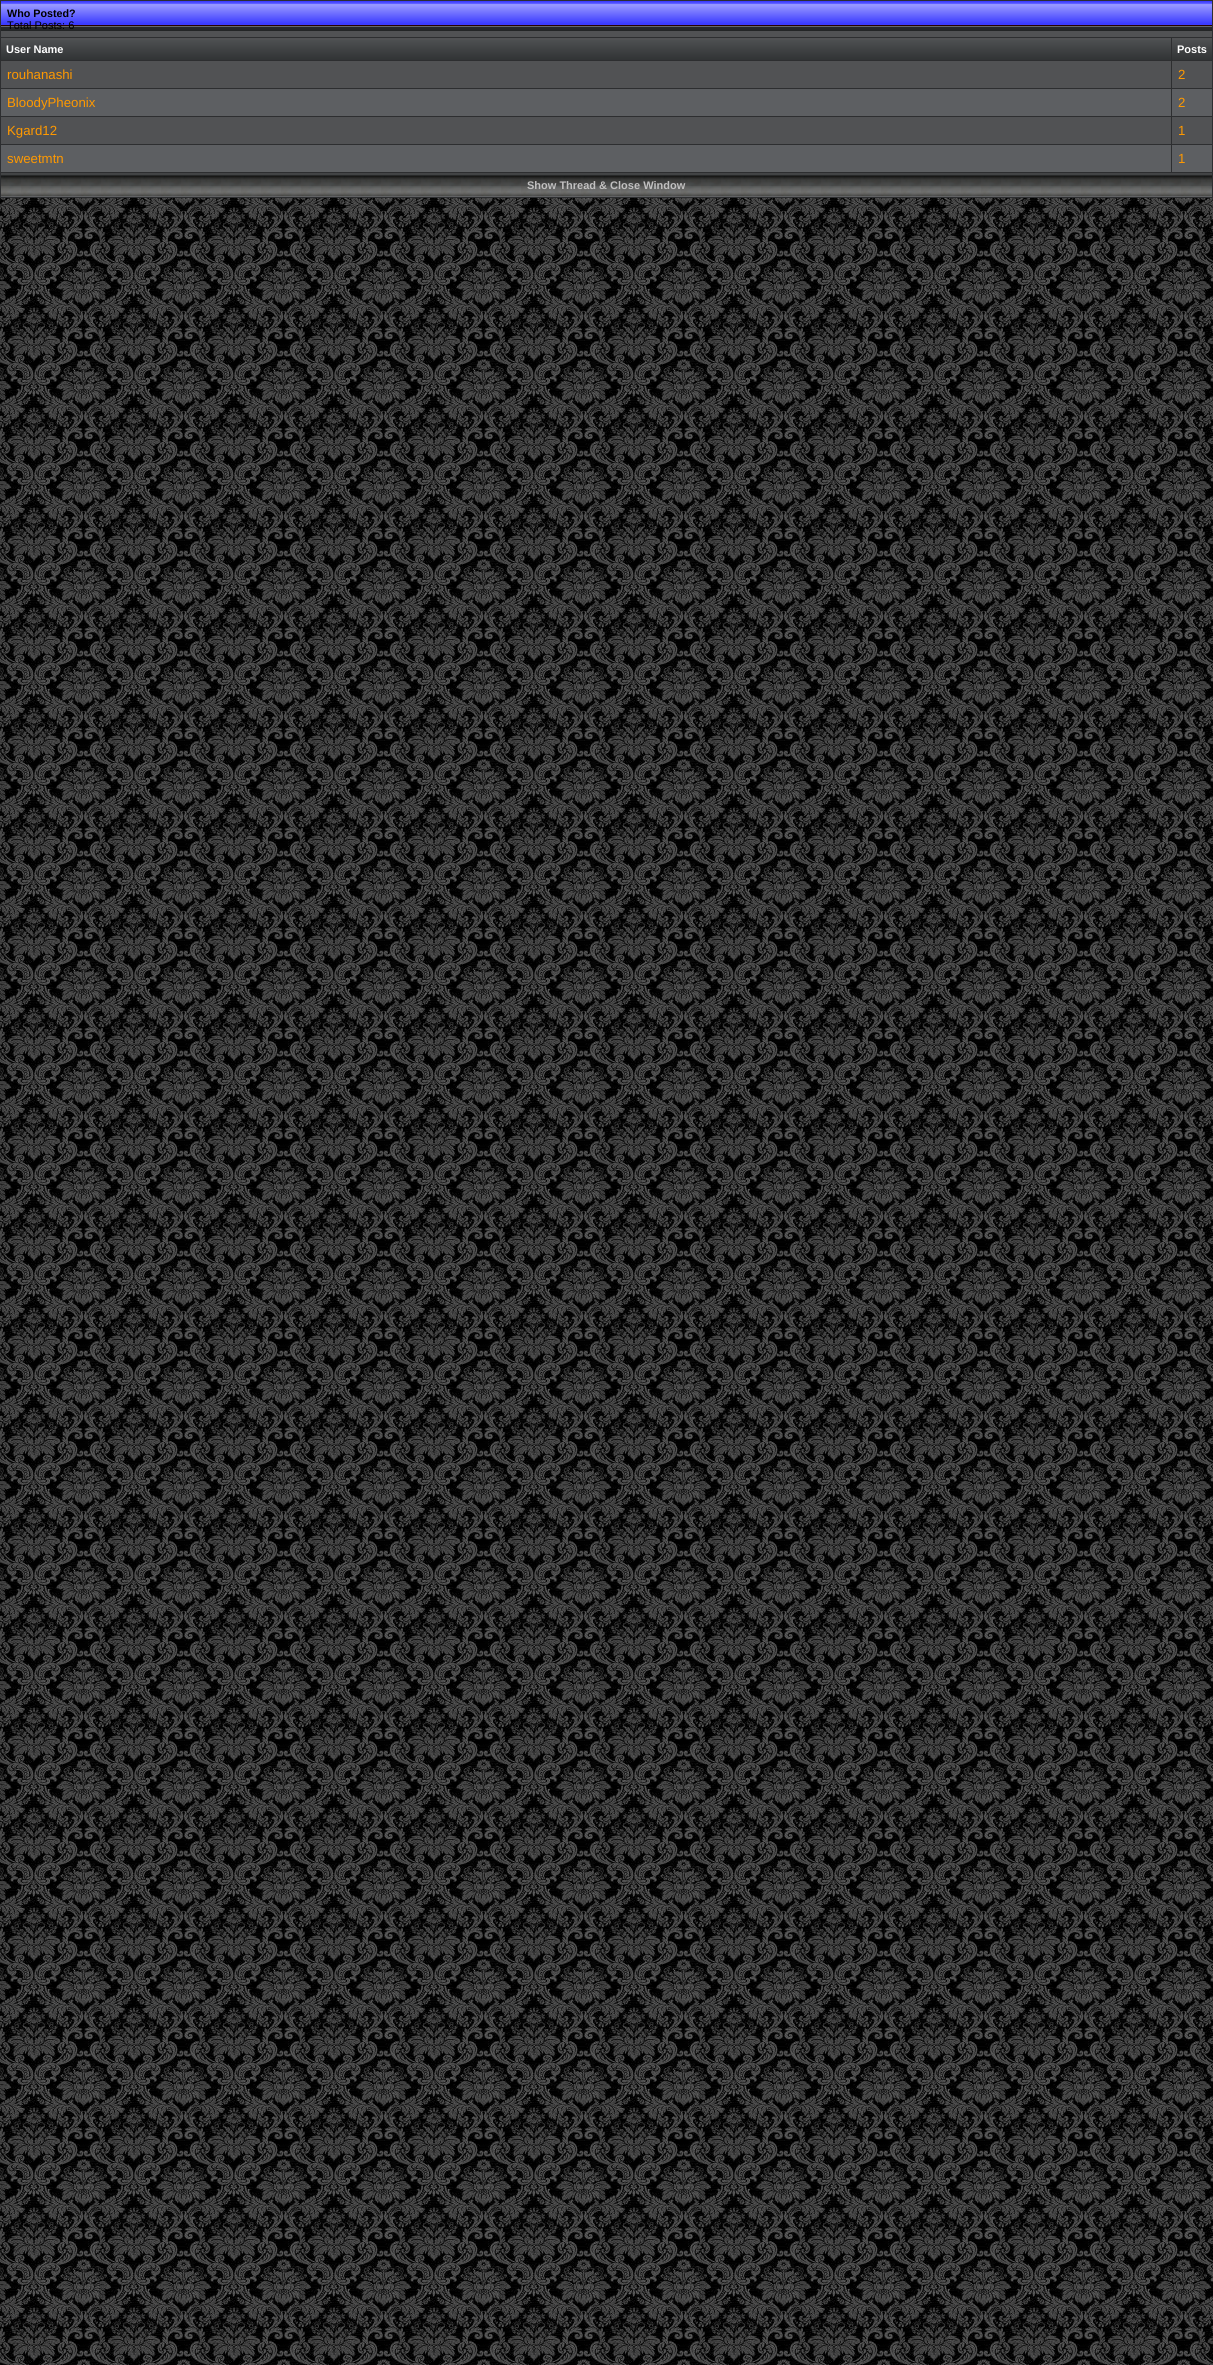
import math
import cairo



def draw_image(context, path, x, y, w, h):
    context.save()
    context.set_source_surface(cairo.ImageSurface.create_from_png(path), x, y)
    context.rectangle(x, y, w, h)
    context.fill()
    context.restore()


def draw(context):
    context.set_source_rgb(1, 1, 1)
    context.paint()
    draw_image(context, "images/1.png", 0, 198, 1213, 2167)
    context.set_source_rgb(45 / 255, 46 / 255, 48 / 255)
    context.rectangle(0, 0, 1213, 198)
    context.fill()
    context.set_source_rgb(81 / 255, 82 / 255, 84 / 255)
    context.rectangle(1, 31, 1211, 6)
    context.fill()
    draw_image(context, "images/2.png", 1, 1, 1211, 30)
    context.rectangle(1, 38, 1170, 2)
    context.fill()
    draw_image(context, "images/3.png", 1, 40, 1170, 20)
    context.rectangle(1172, 38, 40, 2)
    context.fill()
    draw_image(context, "images/4.png", 1172, 40, 40, 20)
    context.rectangle(1, 61, 1170, 27)
    context.fill()
    context.rectangle(1172, 61, 40, 27)
    context.fill()
    context.set_source_rgb(93 / 255, 95 / 255, 98 / 255)
    context.rectangle(1, 89, 1170, 27)
    context.fill()
    context.rectangle(1172, 89, 40, 27)
    context.fill()
    context.set_source_rgb(81 / 255, 82 / 255, 84 / 255)
    context.rectangle(1, 117, 1170, 27)
    context.fill()
    context.rectangle(1172, 117, 40, 27)
    context.fill()
    context.set_source_rgb(93 / 255, 95 / 255, 98 / 255)
    context.rectangle(1, 145, 1170, 27)
    context.fill()
    context.rectangle(1172, 145, 40, 27)
    context.fill()
    draw_image(context, "images/5.png", 1, 173, 1211, 24)
    context.select_font_face("Liberation Sans", cairo.FontSlant.NORMAL, cairo.FontWeight.BOLD)
    context.set_font_size(10.75)
    context.set_source_rgb(0, 0, 0)
    context.move_to(7, 17)
    context.show_text("Who Posted?")
    context.select_font_face("Liberation Sans")
    context.set_font_size(11)
    context.move_to(7, 29)
    context.show_text("Total Posts: 6")
    context.select_font_face("Liberation Sans", cairo.FontSlant.NORMAL, cairo.FontWeight.BOLD)
    context.set_source_rgb(1, 1, 1)
    context.move_to(6, 53)
    context.show_text("User Name")
    context.move_to(1177, 53)
    context.show_text("Posts")
    context.select_font_face("Liberation Sans")
    context.set_font_size(13.25)
    context.set_source_rgb(1, 153 / 255, 0)
    context.move_to(7, 79)
    context.show_text("rouhanashi")
    context.move_to(1178, 79)
    context.show_text("2")
    context.move_to(7, 107)
    context.show_text("BloodyPheonix")
    context.move_to(1178, 107)
    context.show_text("2")
    context.move_to(7, 135)
    context.show_text("Kgard12")
    context.move_to(1178, 135)
    context.show_text("1")
    context.move_to(7, 163)
    context.show_text("sweetmtn")
    context.move_to(1178, 163)
    context.show_text("1")
    context.select_font_face("Liberation Sans", cairo.FontSlant.NORMAL, cairo.FontWeight.BOLD)
    context.set_font_size(11)
    context.set_source_rgb(193 / 255, 192 / 255, 192 / 255)
    context.move_to(527, 189)
    context.show_text("Show Thread & Close Window")


surface = cairo.ImageSurface(cairo.Format.RGB24, 1213, 2365)
context = cairo.Context(surface)
options = cairo.FontOptions()
options.set_hint_metrics(cairo.HintMetrics.OFF)
options.set_hint_style(cairo.HintStyle.NONE)
context.set_font_options(options)
context.set_miter_limit(4)
draw(context)
surface.write_to_png("out.png")
